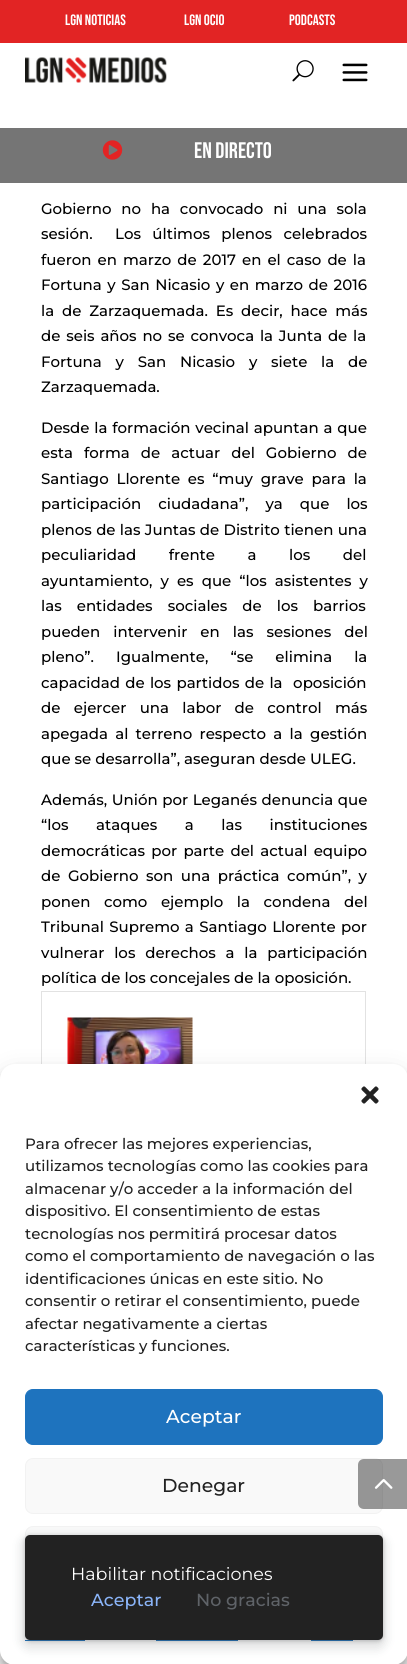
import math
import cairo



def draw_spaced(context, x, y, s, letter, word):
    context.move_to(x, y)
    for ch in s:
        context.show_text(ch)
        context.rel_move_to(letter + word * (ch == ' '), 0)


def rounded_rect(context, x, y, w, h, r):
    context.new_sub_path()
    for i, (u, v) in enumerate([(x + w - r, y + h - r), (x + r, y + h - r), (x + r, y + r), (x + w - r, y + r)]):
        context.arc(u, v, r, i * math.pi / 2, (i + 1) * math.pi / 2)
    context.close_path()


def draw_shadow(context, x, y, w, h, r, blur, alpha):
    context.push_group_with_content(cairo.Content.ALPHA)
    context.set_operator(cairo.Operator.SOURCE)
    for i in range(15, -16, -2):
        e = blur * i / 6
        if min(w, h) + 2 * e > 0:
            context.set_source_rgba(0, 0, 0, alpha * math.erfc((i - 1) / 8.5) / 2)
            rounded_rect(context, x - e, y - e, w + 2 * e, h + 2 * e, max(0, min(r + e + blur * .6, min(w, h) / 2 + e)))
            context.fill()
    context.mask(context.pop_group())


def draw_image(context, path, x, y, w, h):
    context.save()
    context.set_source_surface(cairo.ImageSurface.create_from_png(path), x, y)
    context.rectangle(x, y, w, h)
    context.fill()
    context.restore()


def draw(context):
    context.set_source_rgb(1, 1, 1)
    context.paint()
    context.set_source_rgb(226 / 255, 36 / 255, 36 / 255)
    context.rectangle(0, 0, 407, 43)
    context.fill()
    draw_image(context, "images/1.png", 25, 57, 142, 26)
    draw_image(context, "images/2.png", 292, 60, 22, 22)
    draw_image(context, "images/3.png", 342, 63, 26, 19)
    context.set_source_rgb(117 / 255, 117 / 255, 117 / 255)
    context.rectangle(0, 128, 407, 55)
    context.fill()
    draw_image(context, "images/4.png", 102, 140, 21, 20)
    context.rectangle(41.5, 991.5, 324, 432)
    context.set_source_rgb(226 / 255, 226 / 255, 226 / 255)
    context.set_line_width(1)
    context.stroke()
    draw_image(context, "images/5.png", 67, 1017, 126, 47)
    context.set_source_rgb(0, 0, 0)
    draw_shadow(context, 0, 1071, 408, 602, 15, 4, 0.23)
    draw_shadow(context, 0, 1076, 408, 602, 15, 12.5, 0.19)
    context.set_source_rgb(1, 1, 1)
    rounded_rect(context, 0, 1064, 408, 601, 15)
    context.fill()
    draw_image(context, "images/6.png", 361, 1086, 18, 18)
    context.set_source_rgb(30 / 255, 115 / 255, 190 / 255)
    rounded_rect(context, 25.5, 1389.5, 357, 55, 7.5)
    context.fill_preserve()
    context.stroke()
    context.set_source_rgb(249 / 255, 249 / 255, 249 / 255)
    rounded_rect(context, 25.5, 1458.5, 357, 55, 7.5)
    context.fill_preserve()
    context.set_source_rgb(242 / 255, 242 / 255, 242 / 255)
    context.stroke()
    context.set_source_rgb(249 / 255, 249 / 255, 249 / 255)
    rounded_rect(context, 25.5, 1526.5, 357, 56, 7.5)
    context.fill_preserve()
    context.set_source_rgb(242 / 255, 242 / 255, 242 / 255)
    context.stroke()
    context.set_source_rgb(30 / 255, 115 / 255, 190 / 255)
    context.rectangle(25, 1640, 60, 1)
    context.fill()
    context.rectangle(156, 1640, 82, 1)
    context.fill()
    context.rectangle(311, 1640, 42, 1)
    context.fill()
    context.set_source_rgba(0, 0, 0, 0.4)
    context.new_path()
    context.move_to(364, 1459)
    context.line_to(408, 1459)
    context.line_to(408, 1509)
    context.line_to(364, 1509)
    context.curve_to(360.5, 1509, 358, 1506.5, 358, 1503)
    context.line_to(358, 1465)
    context.curve_to(358, 1461.5, 360.5, 1459, 364, 1459)
    context.close_path()
    context.fill()
    draw_image(context, "images/7.png", 374, 1479, 19, 10)
    context.set_source_rgb(60 / 255, 64 / 255, 67 / 255)
    draw_shadow(context, 21, 1536, 365, 113, 9, 5, 0.15)
    draw_shadow(context, 25, 1536, 358, 105, 5, 2, 0.3)
    context.set_source_rgb(34 / 255, 34 / 255, 34 / 255)
    rounded_rect(context, 25, 1535, 358, 105, 5)
    context.fill()
    context.select_font_face("Bebas Neue")
    context.set_font_size(15)
    context.set_source_rgb(1, 1, 1)
    context.move_to(65, 25)
    context.show_text("LGN Noticias")
    context.move_to(184, 25)
    context.show_text("LGN ocio")
    context.move_to(289, 25)
    context.show_text("podcasts")
    context.set_font_size(22.5)
    context.move_to(194, 158)
    context.show_text("EN DIRECTO")
    context.select_font_face("Montserrat Thin")
    context.set_font_size(15)
    context.set_source_rgb(0, 0, 0)
    draw_spaced(context, 41, 214, "Gobierno no ha convocado ni una sola", 0, 5.75)
    draw_spaced(context, 41, 239, "sesión.  Los últimos plenos celebrados", 0, 7.25)
    draw_spaced(context, 41, 265, "fueron en marzo de 2017 en el caso de la", 0, 2)
    draw_spaced(context, 41, 290, "Fortuna y San Nicasio y en marzo de 2016", 0, 1.5)
    draw_spaced(context, 41, 316, "la de Zarzaquemada. Es decir, hace más", 0, 3.75)
    draw_spaced(context, 41, 341, "de seis años no se convoca la Junta de la", 0, 1.75)
    draw_spaced(context, 41, 367, "Fortuna y San Nicasio y siete la de", 0, 9.75)
    context.move_to(41, 392)
    context.show_text("Zarzaquemada.")
    draw_spaced(context, 41, 433, "Desde la formación vecinal apuntan a que", 0, 0.75)
    draw_spaced(context, 41, 458, "esta forma de actuar del Gobierno de", 0, 7)
    draw_spaced(context, 41, 484, "Santiago Llorente es “muy grave para la", 0, 3.75)
    draw_spaced(context, 41, 509, "participación ciudadana”, ya que los", 0, 13)
    draw_spaced(context, 41, 535, "plenos de las Juntas de Distrito tienen una", 0, 0.25)
    draw_spaced(context, 41, 560, "peculiaridad frente a los del", 0, 28.5)
    draw_spaced(context, 41, 586, "ayuntamiento, y es que “los asistentes y", 0, 4)
    draw_spaced(context, 41, 611, "las entidades sociales de los barrios", 0, 11)
    draw_spaced(context, 41, 637, "pueden intervenir en las sesiones del", 0, 9)
    draw_spaced(context, 41, 662, "pleno”. Igualmente, “se elimina la", 0, 18)
    draw_spaced(context, 41, 688, "capacidad de los partidos de la  oposición", 0, 1.25)
    draw_spaced(context, 41, 713, "de ejercer una labor de control más", 0, 9.25)
    draw_spaced(context, 41, 739, "apegada al terreno respecto a la gestión", 0, 3.25)
    context.move_to(41, 764)
    context.show_text("que se desarrolla”, aseguran desde ULEG.")
    draw_spaced(context, 41, 805, "Además, Unión por Leganés denuncia que", 0, 0.5)
    draw_spaced(context, 41, 830, "“los ataques a las instituciones", 0, 23.5)
    draw_spaced(context, 41, 856, "democráticas por parte del actual equipo", 0, 2.25)
    draw_spaced(context, 41, 881, "de Gobierno son una práctica común”, y", 0, 3.5)
    draw_spaced(context, 41, 907, "ponen como ejemplo la condena del", 0, 9.5)
    draw_spaced(context, 41, 932, "Tribunal Supremo a Santiago Llorente por", 0, 1.25)
    draw_spaced(context, 41, 958, "vulnerar los derechos a la participación", 0, 5.75)
    context.move_to(41, 983)
    context.show_text("política de los concejales de la oposición.")
    context.set_source_rgb(34 / 255, 34 / 255, 34 / 255)
    context.move_to(25, 1149)
    context.show_text("Para ofrecer las mejores experiencias,")
    context.move_to(25, 1171)
    context.show_text("utilizamos tecnologías como las cookies para")
    context.move_to(25, 1194)
    context.show_text("almacenar y/o acceder a la información del")
    context.move_to(25, 1216)
    context.show_text("dispositivo. El consentimiento de estas")
    context.move_to(25, 1239)
    context.show_text("tecnologías nos permitirá procesar datos")
    context.move_to(25, 1261)
    context.show_text("como el comportamiento de navegación o las")
    context.move_to(25, 1284)
    context.show_text("identificaciones únicas en este sitio. No")
    context.move_to(25, 1306)
    context.show_text("consentir o retirar el consentimiento, puede")
    context.move_to(25, 1329)
    context.show_text("afectar negativamente a ciertas")
    context.move_to(25, 1351)
    context.show_text("características y funciones.")
    context.set_font_size(18.75)
    context.set_source_rgb(1, 1, 1)
    context.move_to(166, 1423)
    context.show_text("Aceptar")
    context.set_source_rgb(34 / 255, 34 / 255, 34 / 255)
    context.move_to(162, 1492)
    context.show_text("Denegar")
    context.select_font_face("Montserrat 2 Thin")
    context.set_font_size(17.5)
    context.set_source_rgb(1, 1, 1)
    context.move_to(71, 1580)
    context.show_text("Habilitar notificaciones")
    context.select_font_face("Montserrat Thin")
    context.set_source_rgb(138 / 255, 180 / 255, 248 / 255)
    context.move_to(91, 1606)
    context.show_text("Aceptar")
    context.set_source_rgb(95 / 255, 99 / 255, 104 / 255)
    context.move_to(196, 1606)
    context.show_text("No gracias")


surface = cairo.ImageSurface(cairo.Format.RGB24, 407, 1664)
context = cairo.Context(surface)
options = cairo.FontOptions()
options.set_hint_metrics(cairo.HintMetrics.OFF)
options.set_hint_style(cairo.HintStyle.NONE)
context.set_font_options(options)
context.set_miter_limit(4)
draw(context)
surface.write_to_png("out.png")
